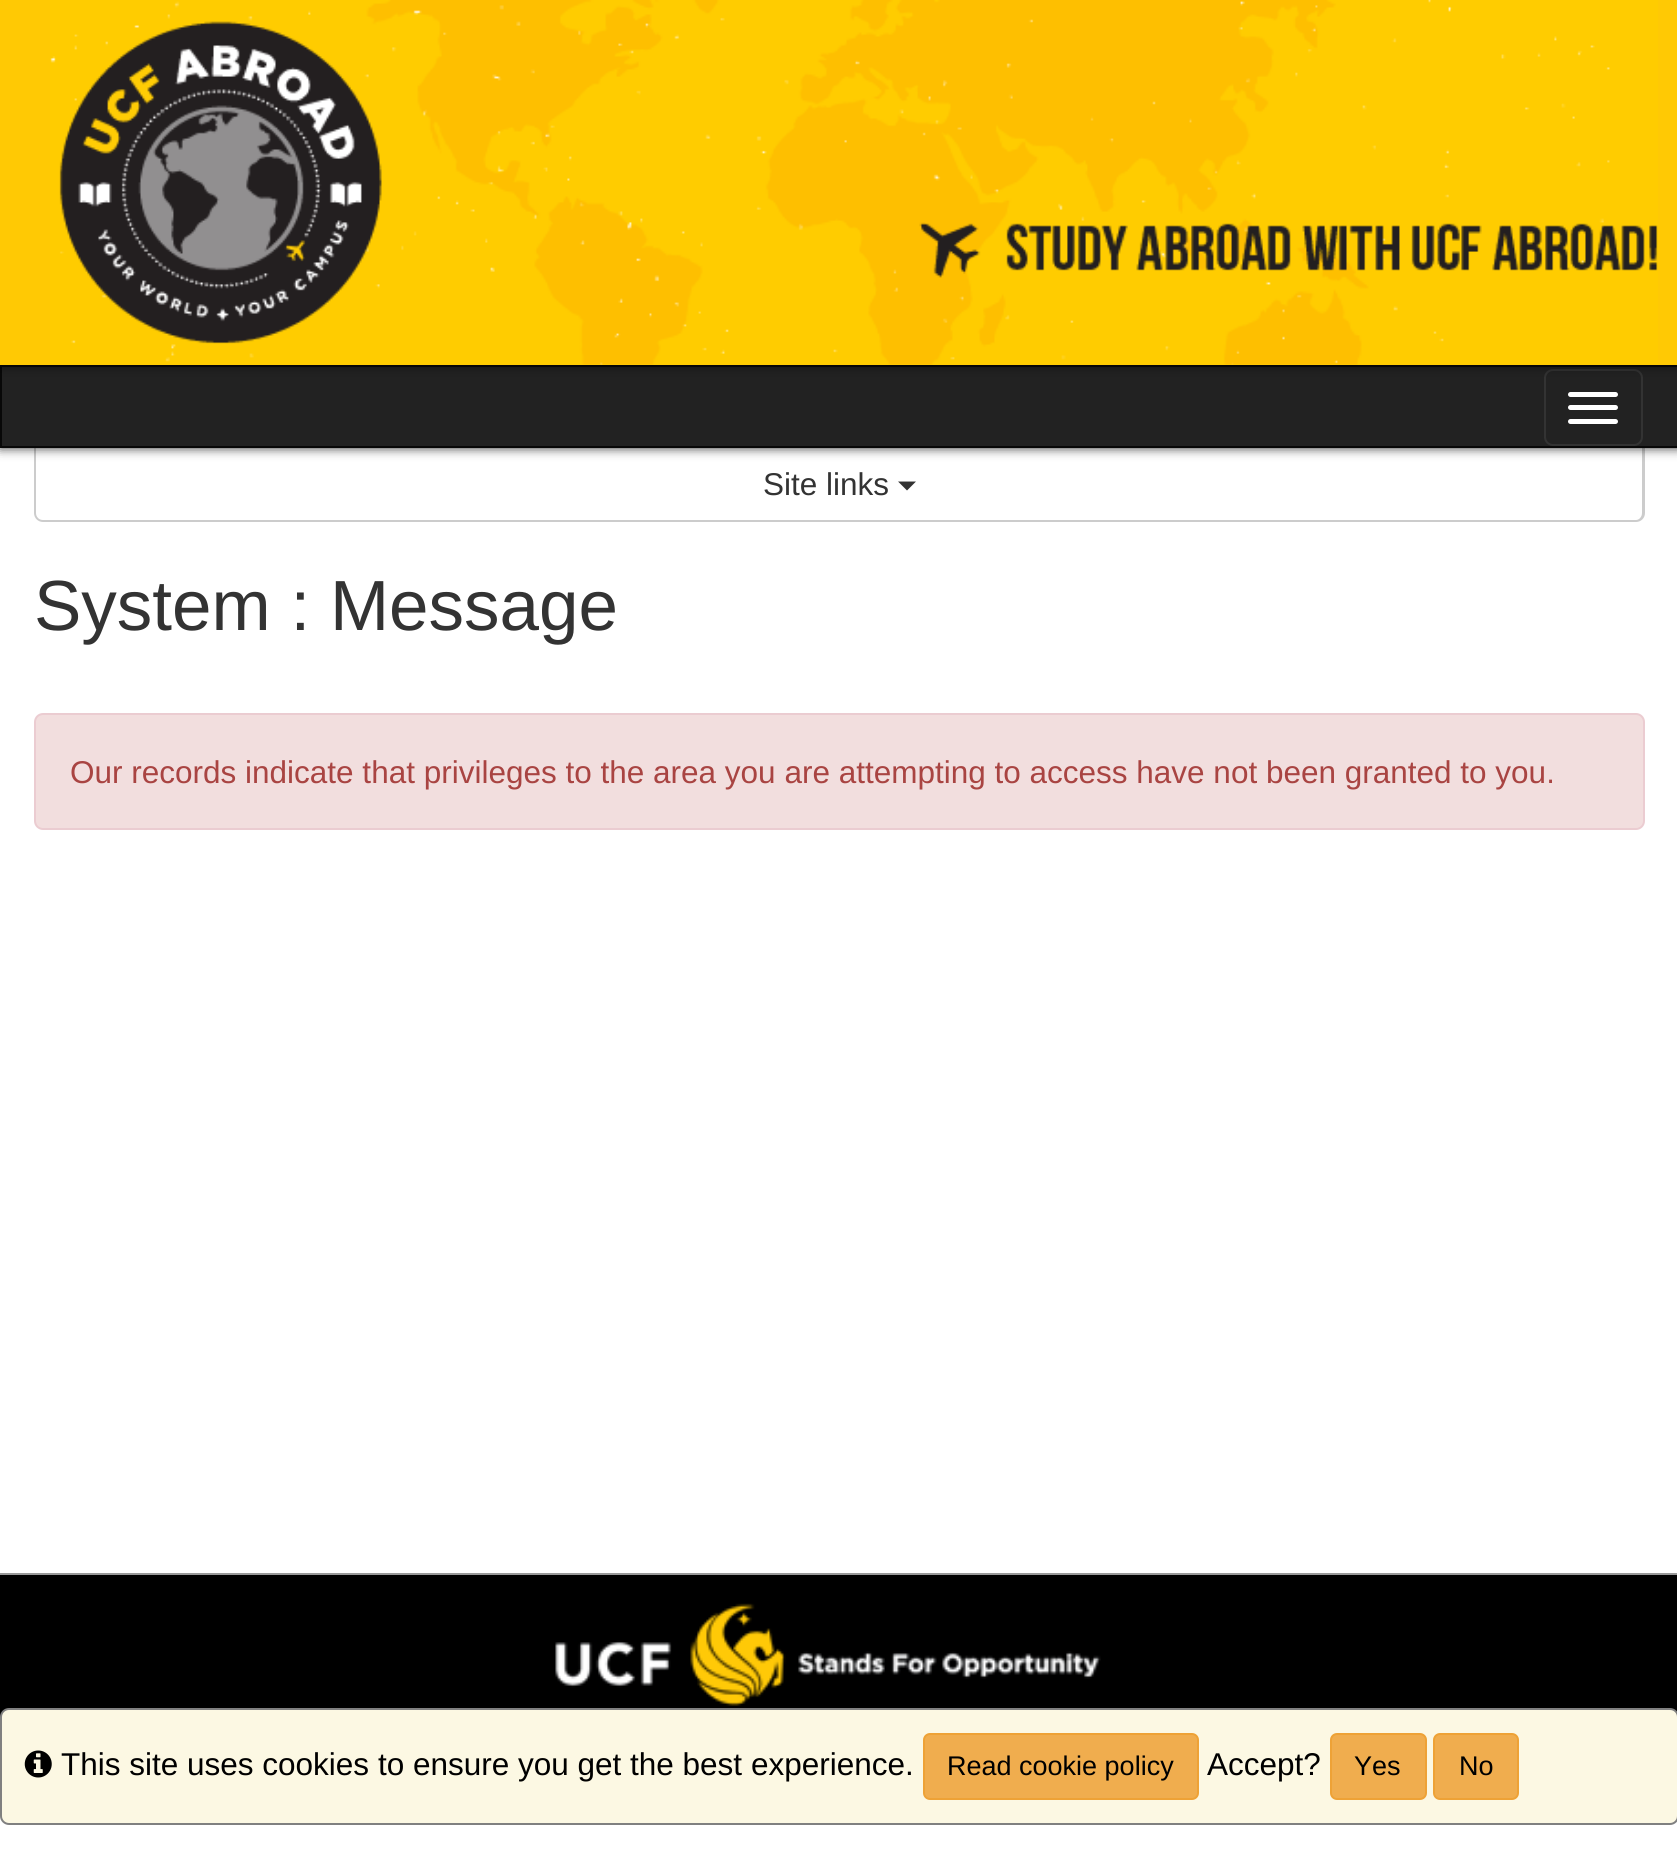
import math
import cairo



def rounded_rect(context, x, y, w, h, r):
    context.new_sub_path()
    for i, (u, v) in enumerate([(x + w - r, y + h - r), (x + r, y + h - r), (x + r, y + r), (x + w - r, y + r)]):
        context.arc(u, v, r, i * math.pi / 2, (i + 1) * math.pi / 2)
    context.close_path()


def draw_shadow(context, x, y, w, h, r, blur, alpha):
    context.push_group_with_content(cairo.Content.ALPHA)
    context.set_operator(cairo.Operator.SOURCE)
    for i in range(15, -16, -2):
        e = blur * i / 6
        if min(w, h) + 2 * e > 0:
            context.set_source_rgba(0, 0, 0, alpha * math.erfc((i - 1) / 8.5) / 2)
            rounded_rect(context, x - e, y - e, w + 2 * e, h + 2 * e, max(0, min(r + e + blur * .6, min(w, h) / 2 + e)))
            context.fill()
    context.mask(context.pop_group())


def draw_image(context, path, x, y, w, h):
    context.save()
    context.set_source_surface(cairo.ImageSurface.create_from_png(path), x, y)
    context.rectangle(x, y, w, h)
    context.fill()
    context.restore()


def draw(context):
    context.set_source_rgb(1, 1, 1)
    context.paint()
    context.set_source_rgb(204 / 255, 204 / 255, 204 / 255)
    context.set_fill_rule(cairo.FillRule.EVEN_ODD)
    context.new_path()
    context.move_to(34, 448)
    context.line_to(1645, 448)
    context.line_to(1645, 513)
    context.curve_to(1645, 518, 1641, 522, 1636, 522)
    context.line_to(43, 522)
    context.curve_to(38, 522, 34, 518, 34, 513)
    context.close_path()
    context.move_to(36, 448)
    context.line_to(1642, 448)
    context.line_to(1642, 513)
    context.curve_to(1642, 517, 1639, 520, 1636, 520)
    context.line_to(43, 520)
    context.curve_to(39, 520, 36, 517, 36, 513)
    context.close_path()
    context.fill()
    context.set_source_rgb(0, 0, 0)
    draw_shadow(context, 0, 365, 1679, 83, 0, 5.5, 0.8)
    context.set_source_rgb(34 / 255, 34 / 255, 34 / 255)
    context.rectangle(1, 366, 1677, 81)
    context.fill_preserve()
    context.set_source_rgb(8 / 255, 8 / 255, 8 / 255)
    context.stroke()
    rounded_rect(context, 1545, 370, 97, 75, 8)
    context.set_source_rgb(51 / 255, 51 / 255, 51 / 255)
    context.stroke()
    context.set_source_rgb(0, 0, 0)
    draw_shadow(context, 0, 0, 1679, 365, 0, 5.5, 0.8)
    context.set_source_rgb(1, 201 / 255, 4 / 255)
    context.rectangle(0, 0, 1677, 365)
    context.fill()
    draw_image(context, "images/1.png", 50, 0, 1608, 365)
    context.set_source_rgb(1, 1, 1)
    rounded_rect(context, 1568, 392, 50, 5, 2.5)
    context.fill()
    rounded_rect(context, 1568, 405, 50, 5, 2.5)
    context.fill()
    rounded_rect(context, 1568, 419, 50, 5, 2.5)
    context.fill()
    context.set_source_rgb(51 / 255, 51 / 255, 51 / 255)
    context.set_fill_rule(cairo.FillRule.WINDING)
    context.new_path()
    context.move_to(898, 481.5)
    context.line_to(916, 481.5)
    context.line_to(907, 490.5)
    context.close_path()
    context.fill()
    context.set_source_rgb(242 / 255, 222 / 255, 222 / 255)
    rounded_rect(context, 35, 714, 1609, 115, 8)
    context.fill_preserve()
    context.set_source_rgb(235 / 255, 204 / 255, 209 / 255)
    context.stroke()
    context.set_source_rgb(0, 0, 0)
    context.rectangle(0, 1575, 1677, 142)
    context.fill()
    context.set_source_rgb(153 / 255, 153 / 255, 153 / 255)
    context.rectangle(0, 1573, 1677, 2)
    context.fill()
    draw_image(context, "images/2.png", 555, 1603, 546, 103)
    context.set_source_rgb(252 / 255, 248 / 255, 227 / 255)
    rounded_rect(context, 1, 1709, 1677, 115, 8)
    context.fill_preserve()
    context.set_source_rgb(128 / 255, 128 / 255, 128 / 255)
    context.stroke()
    draw_image(context, "images/3.png", 24, 1750, 28, 28)
    context.set_source_rgb(240 / 255, 173 / 255, 78 / 255)
    rounded_rect(context, 924, 1734, 274, 65, 6)
    context.fill_preserve()
    context.set_source_rgb(238 / 255, 162 / 255, 54 / 255)
    context.stroke()
    context.set_source_rgb(240 / 255, 173 / 255, 78 / 255)
    rounded_rect(context, 1331, 1734, 95, 65, 6)
    context.fill_preserve()
    context.set_source_rgb(238 / 255, 162 / 255, 54 / 255)
    context.stroke()
    context.set_source_rgb(240 / 255, 173 / 255, 78 / 255)
    rounded_rect(context, 1434, 1734, 84, 65, 6)
    context.fill_preserve()
    context.set_source_rgb(238 / 255, 162 / 255, 54 / 255)
    context.stroke()
    context.select_font_face("Liberation Sans")
    context.set_font_size(31.5)
    context.set_source_rgb(51 / 255, 51 / 255, 51 / 255)
    context.move_to(763, 495)
    context.show_text("Site links")
    context.set_font_size(71)
    context.move_to(34, 630)
    context.show_text("System : Message")
    context.set_font_size(31.5)
    context.set_source_rgb(169 / 255, 68 / 255, 66 / 255)
    context.move_to(70, 783)
    context.show_text("Our records indicate that privileges to the area you are attempting to access have not been granted to you.")
    context.set_source_rgb(0, 0, 0)
    context.move_to(61, 1775)
    context.show_text("This site uses cookies to ensure you get the best experience.")
    context.set_font_size(27)
    context.move_to(947, 1775)
    context.show_text("Read cookie policy")
    context.set_font_size(31.5)
    context.move_to(1207, 1775)
    context.show_text("Accept?")
    context.set_font_size(27)
    context.move_to(1354, 1775)
    context.show_text("Yes")
    context.move_to(1459, 1775)
    context.show_text("No")


surface = cairo.ImageSurface(cairo.Format.RGB24, 1677, 1868)
context = cairo.Context(surface)
options = cairo.FontOptions()
options.set_hint_metrics(cairo.HintMetrics.OFF)
options.set_hint_style(cairo.HintStyle.NONE)
context.set_font_options(options)
context.set_miter_limit(4)
draw(context)
surface.write_to_png("out.png")
